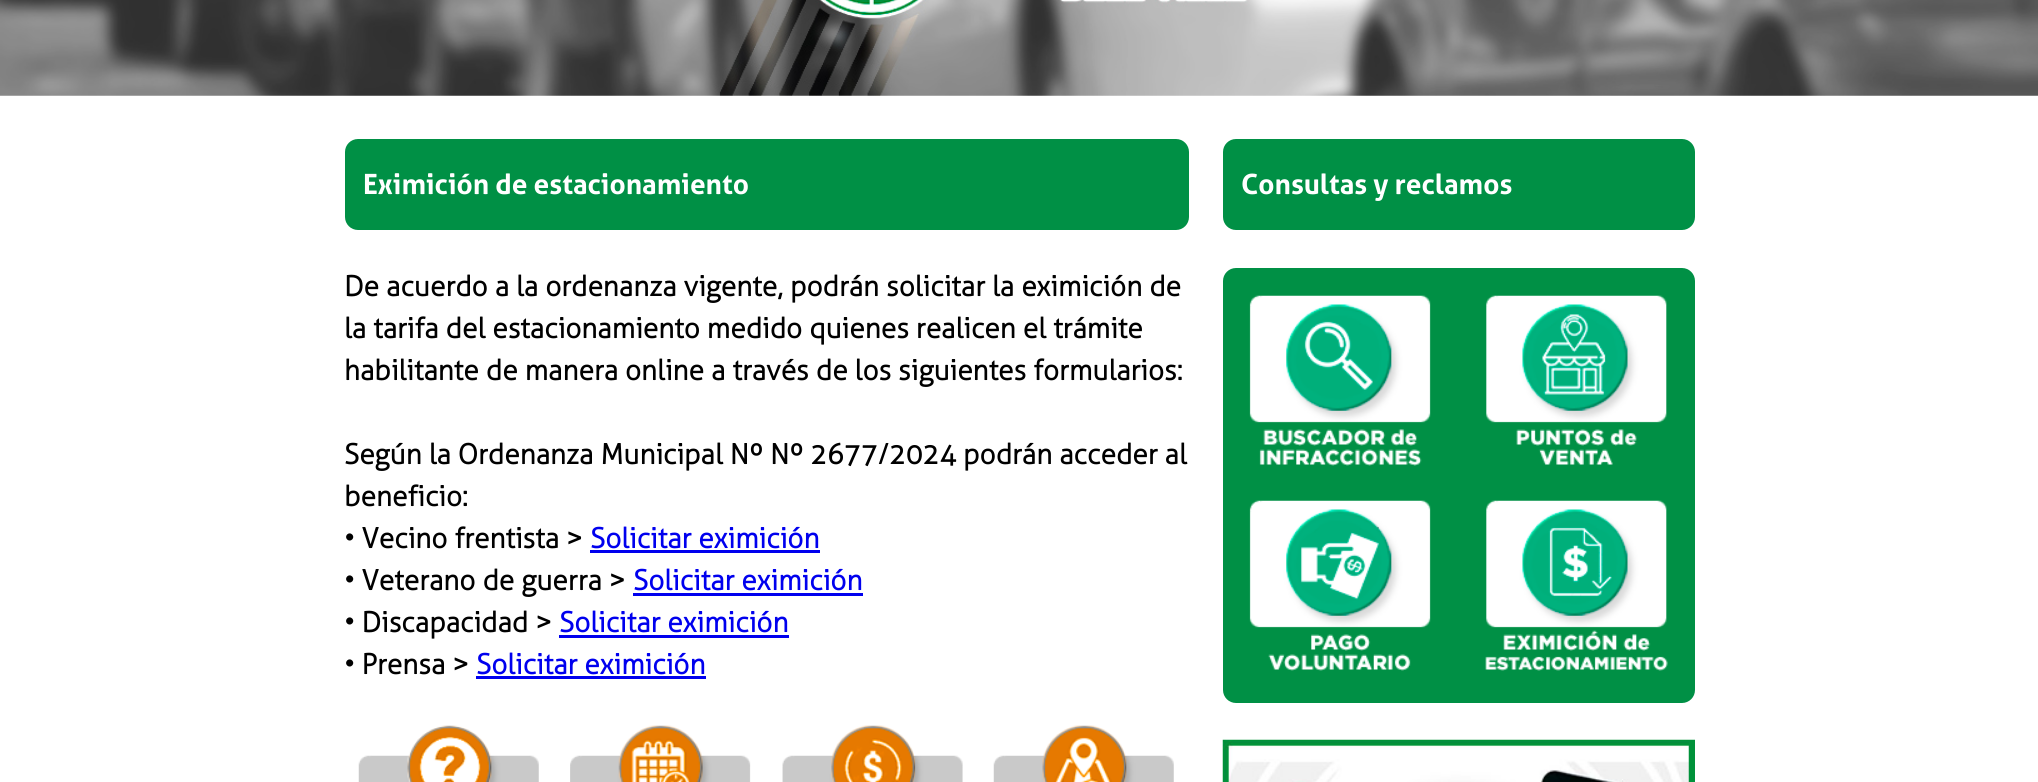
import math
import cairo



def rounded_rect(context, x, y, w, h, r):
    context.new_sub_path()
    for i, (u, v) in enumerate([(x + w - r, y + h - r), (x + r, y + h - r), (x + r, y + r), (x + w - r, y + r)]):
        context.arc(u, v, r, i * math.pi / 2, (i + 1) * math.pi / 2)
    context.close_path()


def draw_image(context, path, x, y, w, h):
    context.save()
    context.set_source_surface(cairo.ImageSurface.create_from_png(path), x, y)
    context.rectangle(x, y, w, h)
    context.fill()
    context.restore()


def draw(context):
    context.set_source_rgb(1, 1, 1)
    context.paint()
    draw_image(context, "images/1.png", 0, 0, 2038, 96)
    context.set_source_rgb(0, 144 / 255, 69 / 255)
    rounded_rect(context, 345, 139, 844, 91, 13)
    context.fill()
    context.set_source_rgb(0, 0, 238 / 255)
    context.rectangle(590, 550, 230, 3)
    context.fill()
    context.rectangle(633, 593, 230, 3)
    context.fill()
    context.rectangle(559, 635, 230, 3)
    context.fill()
    context.rectangle(476, 676, 230, 3)
    context.fill()
    draw_image(context, "images/2.png", 358, 725, 181, 57)
    draw_image(context, "images/3.png", 570, 725, 181, 57)
    draw_image(context, "images/4.png", 782, 725, 181, 57)
    draw_image(context, "images/5.png", 993, 725, 181, 57)
    context.set_source_rgb(0, 144 / 255, 69 / 255)
    rounded_rect(context, 1223, 139, 472, 91, 13)
    context.fill()
    rounded_rect(context, 1223, 268, 472, 435, 13)
    context.fill()
    draw_image(context, "images/6.png", 1249, 295, 182, 171)
    draw_image(context, "images/7.png", 1486, 295, 181, 170)
    draw_image(context, "images/8.png", 1249, 500, 182, 171)
    draw_image(context, "images/9.png", 1485, 500, 183, 171)
    draw_image(context, "images/10.png", 1222, 739, 473, 43)
    context.select_font_face("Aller", cairo.FontSlant.NORMAL, cairo.FontWeight.BOLD)
    context.set_font_size(28)
    context.set_source_rgb(1, 1, 1)
    context.move_to(363, 194)
    context.show_text("Eximición de estacionamiento")
    context.select_font_face("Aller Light", cairo.FontSlant.NORMAL, cairo.FontWeight.BOLD)
    context.set_source_rgb(0, 0, 0)
    context.move_to(344, 296)
    context.show_text("De acuerdo a la ordenanza vigente, podrán solicitar la eximición de")
    context.move_to(344, 338)
    context.show_text("la tarifa del estacionamiento medido quienes realicen el trámite")
    context.move_to(344, 380)
    context.show_text("habilitante de manera online a través de los siguientes formularios:")
    context.move_to(344, 464)
    context.show_text("Según la Ordenanza Municipal Nº Nº 2677/2024 podrán acceder al")
    context.move_to(344, 506)
    context.show_text("beneficio:")
    context.move_to(344, 548)
    context.show_text("• Vecino frentista >")
    context.set_source_rgb(0, 0, 238 / 255)
    context.move_to(590, 548)
    context.show_text("Solicitar eximición")
    context.set_source_rgb(0, 0, 0)
    context.move_to(344, 590)
    context.show_text("• Veterano de guerra >")
    context.set_source_rgb(0, 0, 238 / 255)
    context.move_to(633, 590)
    context.show_text("Solicitar eximición")
    context.set_source_rgb(0, 0, 0)
    context.move_to(344, 632)
    context.show_text("• Discapacidad >")
    context.set_source_rgb(0, 0, 238 / 255)
    context.move_to(559, 632)
    context.show_text("Solicitar eximición")
    context.set_source_rgb(0, 0, 0)
    context.move_to(344, 674)
    context.show_text("• Prensa >")
    context.set_source_rgb(0, 0, 238 / 255)
    context.move_to(476, 674)
    context.show_text("Solicitar eximición")
    context.select_font_face("Aller", cairo.FontSlant.NORMAL, cairo.FontWeight.BOLD)
    context.set_source_rgb(1, 1, 1)
    context.move_to(1241, 194)
    context.show_text("Consultas y reclamos")


surface = cairo.ImageSurface(cairo.Format.RGB24, 2038, 782)
context = cairo.Context(surface)
options = cairo.FontOptions()
options.set_hint_metrics(cairo.HintMetrics.OFF)
options.set_hint_style(cairo.HintStyle.NONE)
context.set_font_options(options)
context.set_miter_limit(4)
draw(context)
surface.write_to_png("out.png")
